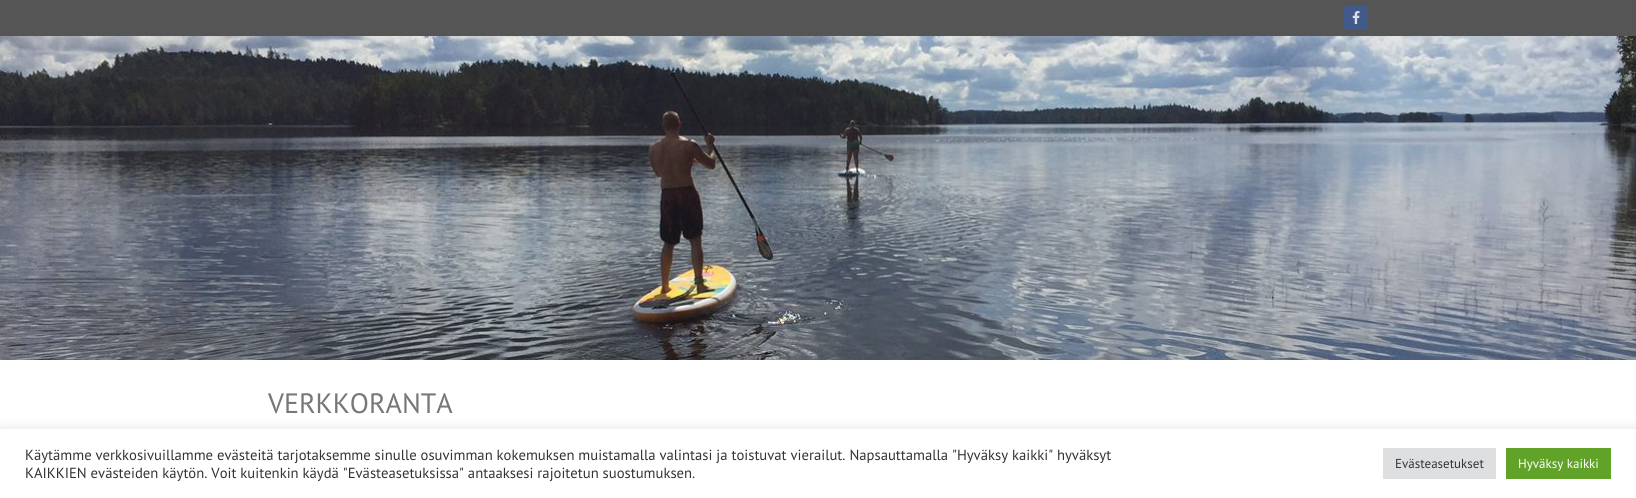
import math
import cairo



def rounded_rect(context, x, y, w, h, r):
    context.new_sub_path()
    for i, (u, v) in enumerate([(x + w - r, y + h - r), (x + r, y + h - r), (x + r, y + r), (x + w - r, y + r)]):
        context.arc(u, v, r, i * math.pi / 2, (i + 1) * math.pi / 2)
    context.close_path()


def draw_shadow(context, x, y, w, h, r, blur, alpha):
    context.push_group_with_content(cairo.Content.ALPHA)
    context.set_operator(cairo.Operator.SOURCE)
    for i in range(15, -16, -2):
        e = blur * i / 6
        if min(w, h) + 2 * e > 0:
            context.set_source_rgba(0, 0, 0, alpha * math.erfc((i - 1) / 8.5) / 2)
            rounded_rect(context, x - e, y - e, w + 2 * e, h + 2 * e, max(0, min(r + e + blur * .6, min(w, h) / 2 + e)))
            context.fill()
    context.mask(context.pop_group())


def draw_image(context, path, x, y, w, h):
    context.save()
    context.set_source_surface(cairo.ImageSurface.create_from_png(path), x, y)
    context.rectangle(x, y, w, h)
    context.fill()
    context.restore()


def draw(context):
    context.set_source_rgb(1, 1, 1)
    context.paint()
    context.set_source_rgb(85 / 255, 85 / 255, 85 / 255)
    context.rectangle(0, 0, 1636, 36)
    context.fill()
    context.set_source_rgb(65 / 255, 89 / 255, 139 / 255)
    rounded_rect(context, 1344, 6, 24, 24, 3)
    context.fill()
    draw_image(context, "images/1.png", 1352, 11, 8, 13)
    draw_image(context, "images/2.png", 0, 36, 1636, 324)
    context.set_source_rgb(172 / 255, 171 / 255, 171 / 255)
    draw_shadow(context, 0, 428, 1636, 69, 0, 5, 0.3)
    context.set_source_rgb(1, 1, 1)
    context.rectangle(0, 429, 1636, 69)
    context.fill()
    context.set_source_rgb(222 / 255, 223 / 255, 224 / 255)
    context.rectangle(1383, 448, 113, 31)
    context.fill()
    context.set_source_rgb(97 / 255, 162 / 255, 41 / 255)
    context.rectangle(1506, 448, 105, 31)
    context.fill()
    context.select_font_face("PT Sans")
    context.set_font_size(28)
    context.set_source_rgb(119 / 255, 119 / 255, 119 / 255)
    context.move_to(268, 413)
    context.show_text("VERKKORANTA")
    context.set_font_size(14.67)
    context.set_source_rgb(51 / 255, 51 / 255, 51 / 255)
    context.move_to(25, 460)
    context.show_text("Käytämme verkkosivuillamme evästeitä tarjotaksemme sinulle osuvimman kokemuksen muistamalla valintasi ja toistuvat vierailut. Napsauttamalla \"Hyväksy kaikki\" hyväksyt")
    context.move_to(25, 478)
    context.show_text("KAIKKIEN evästeiden käytön. Voit kuitenkin käydä \"Evästeasetuksissa\" antaaksesi rajoitetun suostumuksen.")
    context.set_font_size(13)
    context.move_to(1395, 468)
    context.show_text("Evästeasetukset")
    context.set_source_rgb(1, 1, 1)
    context.move_to(1518, 468)
    context.show_text("Hyväksy kaikki")


surface = cairo.ImageSurface(cairo.Format.RGB24, 1636, 498)
context = cairo.Context(surface)
options = cairo.FontOptions()
options.set_hint_metrics(cairo.HintMetrics.OFF)
options.set_hint_style(cairo.HintStyle.NONE)
context.set_font_options(options)
context.set_miter_limit(4)
draw(context)
surface.write_to_png("out.png")
